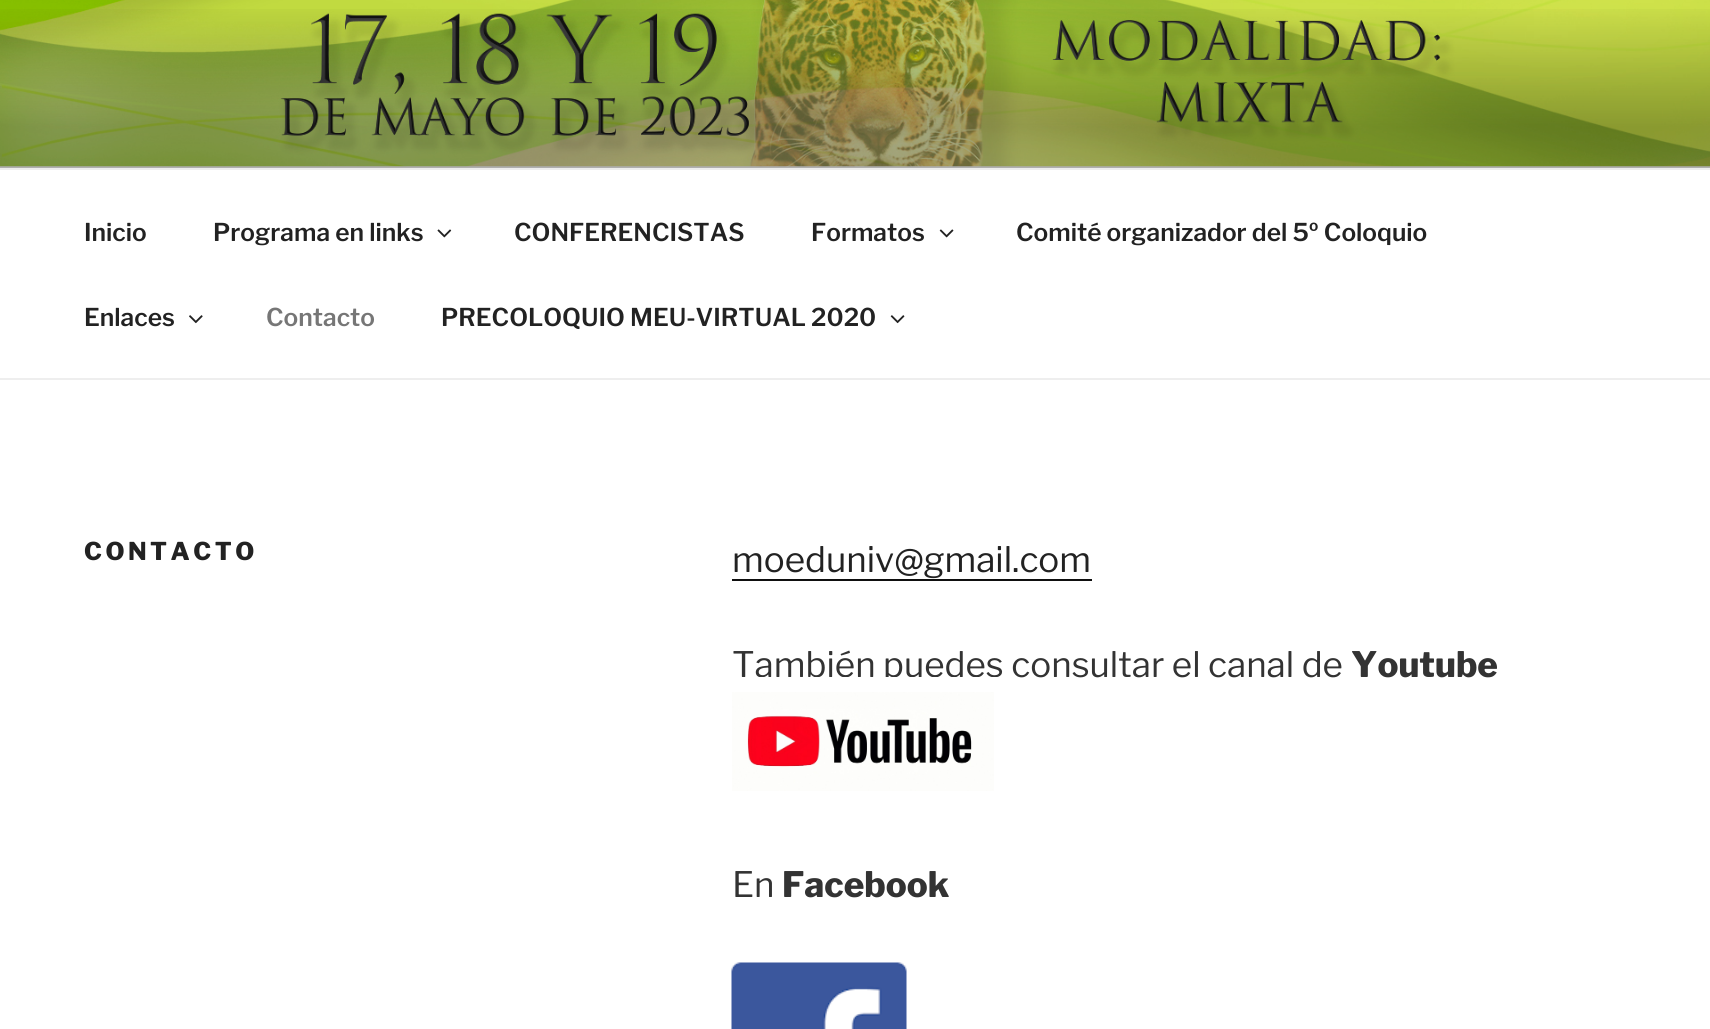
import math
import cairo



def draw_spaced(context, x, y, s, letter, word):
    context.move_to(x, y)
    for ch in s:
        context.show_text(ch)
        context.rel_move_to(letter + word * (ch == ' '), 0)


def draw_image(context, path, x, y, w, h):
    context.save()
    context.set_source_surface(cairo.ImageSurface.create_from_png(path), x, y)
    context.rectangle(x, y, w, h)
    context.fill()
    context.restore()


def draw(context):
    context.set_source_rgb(1, 1, 1)
    context.paint()
    context.set_source_rgb(250 / 255, 250 / 255, 250 / 255)
    context.rectangle(0, 166, 1710, 2)
    context.fill()
    draw_image(context, "images/1.png", 0, 0, 1710, 167)
    gradient = cairo.LinearGradient(856, 0, 856, 168)
    gradient.add_color_stop_rgba(0, 0, 0, 0, 0)
    gradient.add_color_stop_rgba(0.75, 0, 0, 0, 0.3)
    gradient.add_color_stop_rgba(1, 0, 0, 0, 0.3)
    context.set_source(gradient)
    context.rectangle(0, 9, 1710, 159)
    context.fill()
    context.set_source_rgb(238 / 255, 238 / 255, 238 / 255)
    context.rectangle(0, 168, 1710, 2)
    context.fill()
    context.rectangle(0, 378, 1710, 2)
    context.fill()
    draw_image(context, "images/2.png", 437, 229, 15, 9)
    draw_image(context, "images/3.png", 939, 229, 15, 9)
    draw_image(context, "images/4.png", 189, 315, 14, 9)
    draw_image(context, "images/5.png", 890, 315, 15, 9)
    context.set_source_rgb(15 / 255, 15 / 255, 15 / 255)
    context.rectangle(732, 579, 360, 2)
    context.fill()
    draw_image(context, "images/7.png", 731, 962, 176, 67)
    context.select_font_face("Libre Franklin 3 Thin")
    context.set_font_size(24.5)
    context.set_source_rgb(34 / 255, 34 / 255, 34 / 255)
    context.move_to(84, 241)
    context.show_text("Inicio")
    context.move_to(213, 241)
    context.show_text("Programa en links")
    context.move_to(514, 241)
    context.show_text("CONFERENCISTAS")
    context.move_to(811, 241)
    context.show_text("Formatos")
    context.move_to(1016, 241)
    context.show_text("Comité organizador del 5º Coloquio")
    context.move_to(84, 326)
    context.show_text("Enlaces")
    context.set_source_rgb(118 / 255, 118 / 255, 118 / 255)
    context.move_to(266, 326)
    context.show_text("Contacto")
    context.set_source_rgb(34 / 255, 34 / 255, 34 / 255)
    context.move_to(441, 326)
    context.show_text("PRECOLOQUIO MEU-VIRTUAL 2020")
    context.select_font_face("Libre Franklin Thin")
    draw_spaced(context, 84, 560, "CONTACTO", 3.5, 0)
    context.select_font_face("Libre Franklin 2 Thin")
    context.set_font_size(35)
    context.move_to(732, 572)
    context.show_text("moeduniv@gmail.com")
    context.set_source_rgb(51 / 255, 51 / 255, 51 / 255)
    context.move_to(732, 677)
    context.show_text("También puedes consultar el canal de")
    context.select_font_face("Libre Franklin Thin")
    context.move_to(1351, 677)
    context.show_text("Youtube")
    context.rectangle(725, 684, 276, 114)
    context.set_source_rgb(1, 1, 1)
    context.set_line_width(14)
    context.stroke()
    draw_image(context, "images/6.png", 732, 692, 262, 99)
    context.select_font_face("Libre Franklin 2 Thin")
    context.set_source_rgb(51 / 255, 51 / 255, 51 / 255)
    context.move_to(732, 897)
    context.show_text("En")
    context.select_font_face("Libre Franklin Thin")
    context.move_to(782, 897)
    context.show_text("Facebook")


surface = cairo.ImageSurface(cairo.Format.RGB24, 1710, 1029)
context = cairo.Context(surface)
options = cairo.FontOptions()
options.set_hint_metrics(cairo.HintMetrics.OFF)
options.set_hint_style(cairo.HintStyle.NONE)
context.set_font_options(options)
context.set_miter_limit(4)
draw(context)
surface.write_to_png("out.png")
